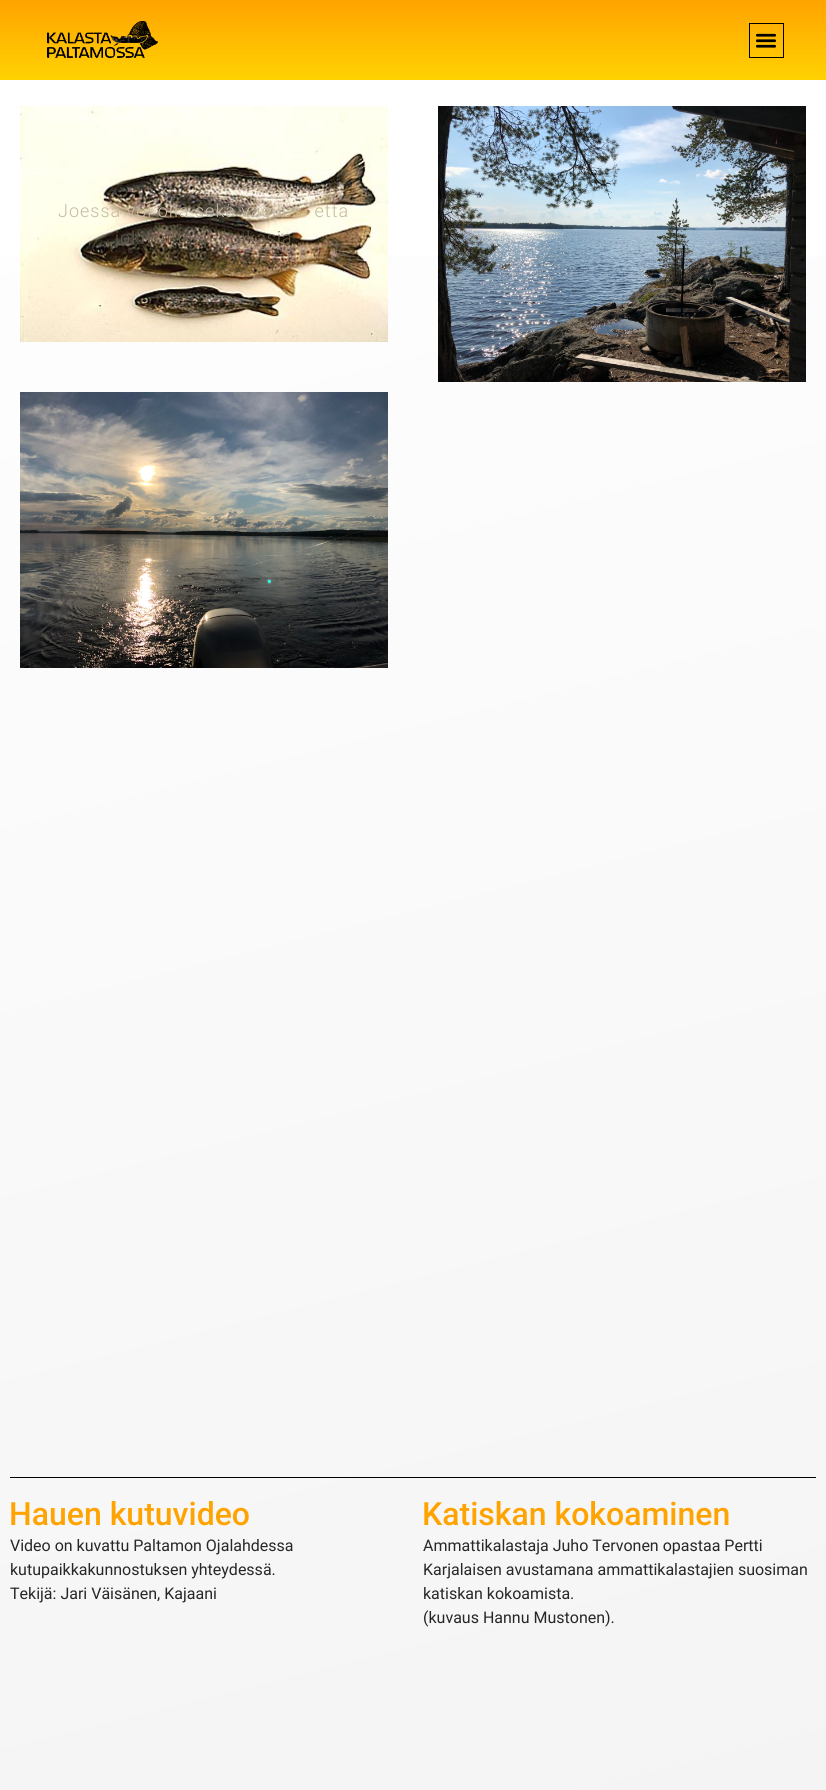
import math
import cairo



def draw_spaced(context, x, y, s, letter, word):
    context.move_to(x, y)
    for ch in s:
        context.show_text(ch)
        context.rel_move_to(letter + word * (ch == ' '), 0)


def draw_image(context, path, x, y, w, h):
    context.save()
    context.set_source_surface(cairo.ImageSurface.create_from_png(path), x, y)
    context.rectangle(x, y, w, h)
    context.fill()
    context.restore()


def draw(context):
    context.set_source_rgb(1, 1, 1)
    context.paint()
    gradient = cairo.LinearGradient(154, -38, 672, 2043)
    gradient.add_color_stop_rgba(0, 1, 1, 1, 1)
    gradient.add_color_stop_rgba(1, 243 / 255, 243 / 255, 243 / 255, 1)
    context.set_source(gradient)
    context.rectangle(0, 255, 826, 1535)
    context.fill()
    gradient = cairo.LinearGradient(413, 0, 413, 80)
    gradient.add_color_stop_rgba(0, 1, 163 / 255, 0, 1)
    gradient.add_color_stop_rgba(1, 1, 210 / 255, 2 / 255, 1)
    context.set_source(gradient)
    context.rectangle(0, 0, 826, 80)
    context.fill()
    draw_image(context, "images/1.png", 47, 21, 111, 38)
    context.rectangle(749.5, 23.5, 34, 34)
    context.set_source_rgb(0, 0, 0)
    context.set_line_width(1)
    context.stroke()
    draw_image(context, "images/2.png", 755, 33, 22, 15)
    draw_image(context, "images/3.png", 20, 106, 368, 236)
    draw_image(context, "images/4.png", 438, 106, 368, 276)
    draw_image(context, "images/5.png", 20, 392, 368, 276)
    context.rectangle(10, 1477, 806, 1)
    context.fill()
    context.select_font_face("Roboto Light")
    context.set_font_size(18)
    context.set_source_rgb(196 / 255, 186 / 255, 164 / 255)
    draw_spaced(context, 58, 217, "Joessa voi olla sekä vaellus- että", 1, 0)
    context.set_source_rgb(103 / 255, 88 / 255, 73 / 255)
    draw_spaced(context, 115, 244, "jokivaiheen poikasia", 1, 0)
    context.select_font_face("Roboto Medium")
    context.set_font_size(32)
    context.set_source_rgb(1, 163 / 255, 0)
    context.move_to(9, 1525)
    context.show_text("Hauen kutuvideo")
    context.select_font_face("Roboto")
    context.set_font_size(16)
    context.set_source_rgb(39 / 255, 39 / 255, 39 / 255)
    context.move_to(10, 1551)
    context.show_text("Video on kuvattu Paltamon Ojalahdessa")
    context.move_to(10, 1575)
    context.show_text("kutupaikkakunnostuksen yhteydessä.")
    context.move_to(10, 1599)
    context.show_text("Tekijä: Jari Väisänen, Kajaani")
    context.select_font_face("Roboto Medium")
    context.set_font_size(32)
    context.set_source_rgb(1, 163 / 255, 0)
    context.move_to(422, 1525)
    context.show_text("Katiskan kokoaminen")
    context.select_font_face("Roboto")
    context.set_font_size(16)
    context.set_source_rgb(39 / 255, 39 / 255, 39 / 255)
    context.move_to(423, 1551)
    context.show_text("Ammattikalastaja Juho Tervonen opastaa Pertti")
    context.move_to(423, 1575)
    context.show_text("Karjalaisen avustamana ammattikalastajien suosiman")
    context.move_to(423, 1599)
    context.show_text("katiskan kokoamista.")
    context.move_to(423, 1623)
    context.show_text("(kuvaus Hannu Mustonen).")


surface = cairo.ImageSurface(cairo.Format.RGB24, 826, 1790)
context = cairo.Context(surface)
options = cairo.FontOptions()
options.set_hint_metrics(cairo.HintMetrics.OFF)
options.set_hint_style(cairo.HintStyle.NONE)
context.set_font_options(options)
context.set_miter_limit(4)
draw(context)
surface.write_to_png("out.png")
